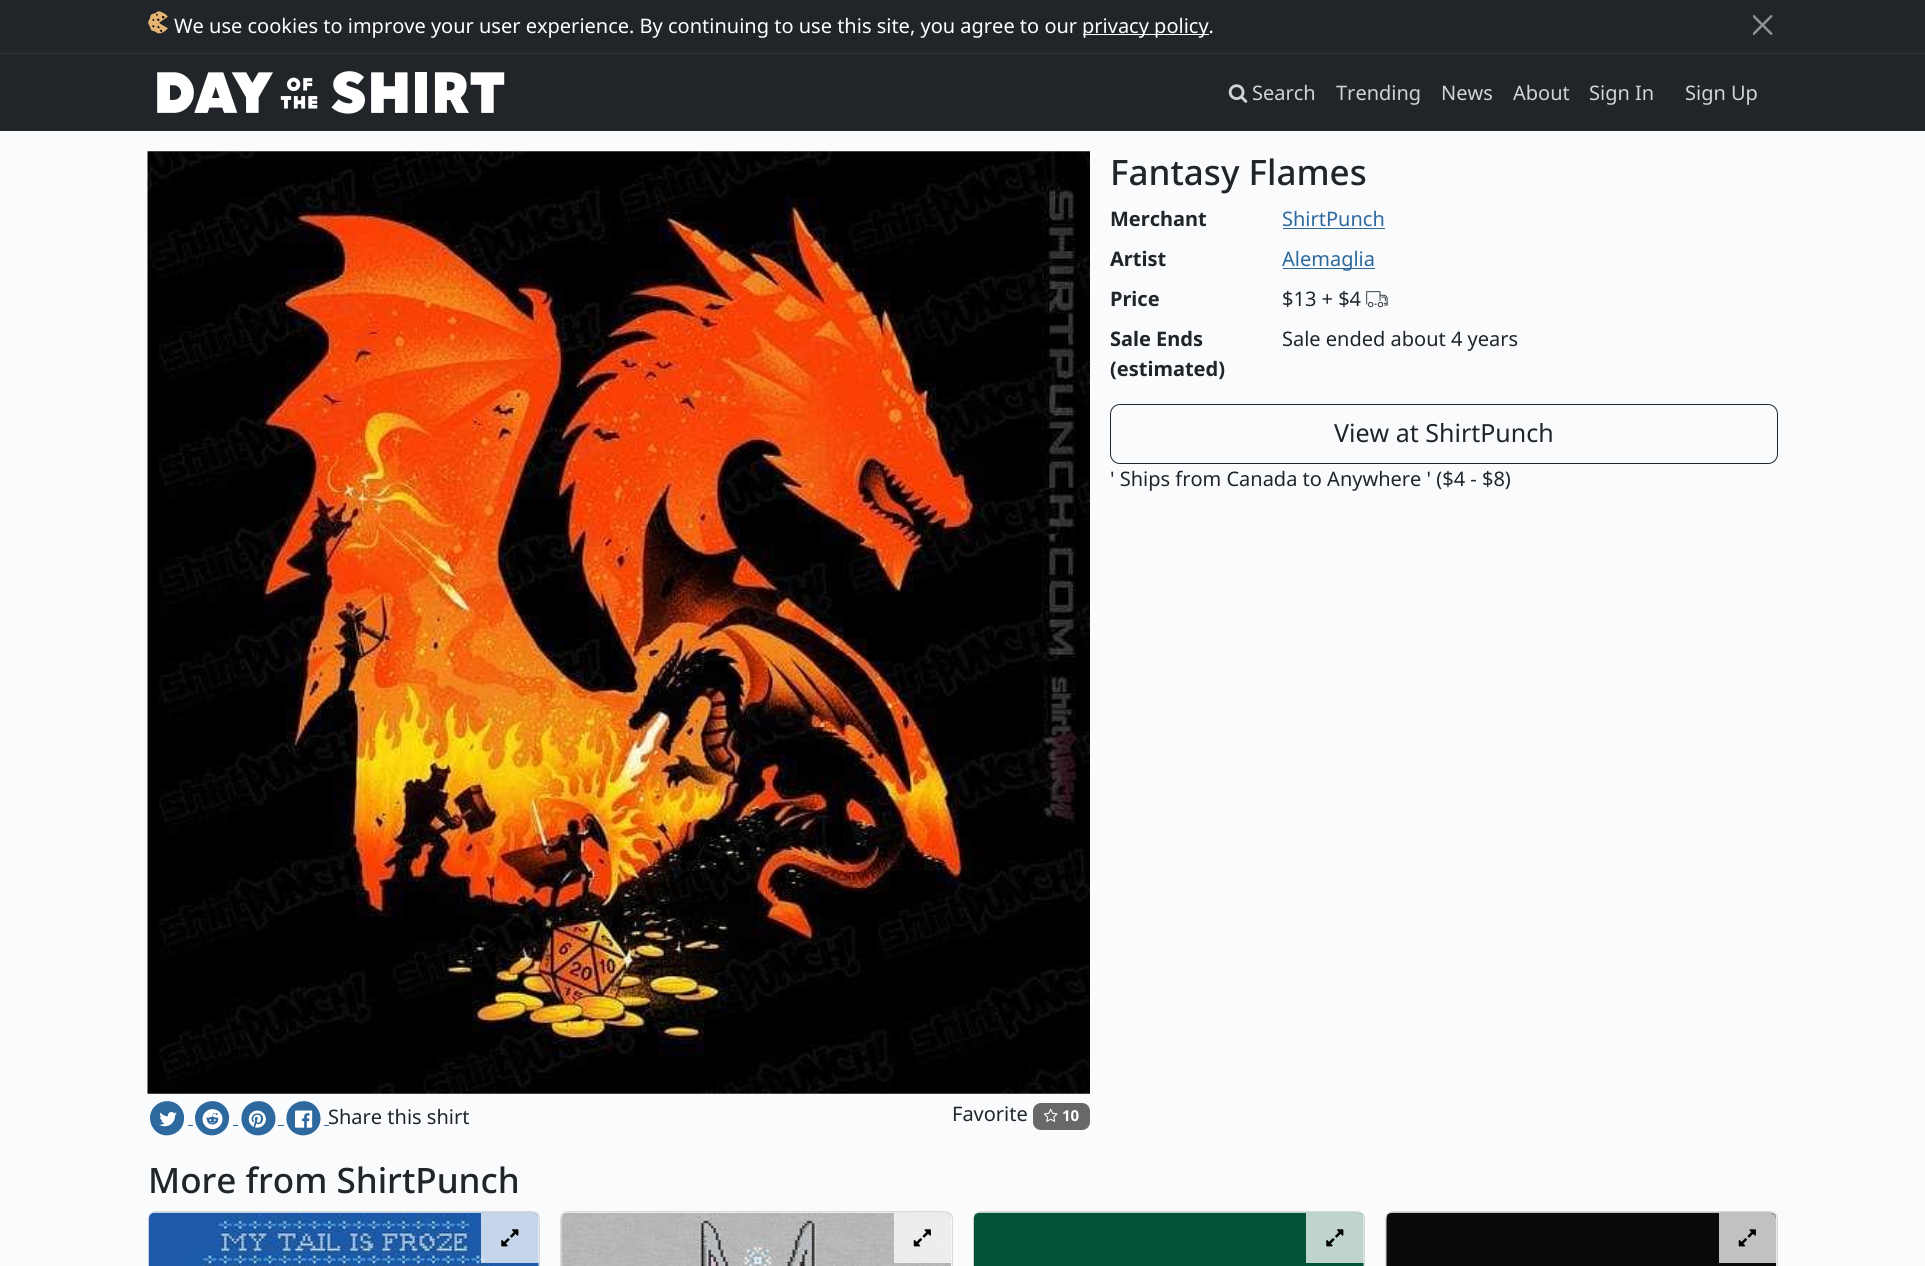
import math
import cairo



def rounded_rect(context, x, y, w, h, r):
    context.new_sub_path()
    for i, (u, v) in enumerate([(x + w - r, y + h - r), (x + r, y + h - r), (x + r, y + r), (x + w - r, y + r)]):
        context.arc(u, v, r, i * math.pi / 2, (i + 1) * math.pi / 2)
    context.close_path()


def draw_image(context, path, x, y, w, h):
    context.save()
    context.set_source_surface(cairo.ImageSurface.create_from_png(path), x, y)
    context.rectangle(x, y, w, h)
    context.fill()
    context.restore()


def draw(context):
    context.set_source_rgb(250 / 255, 251 / 255, 253 / 255)
    context.paint()
    context.set_source_rgb(33 / 255, 37 / 255, 41 / 255)
    context.rectangle(0, 0, 1925, 53)
    context.fill()
    context.set_source_rgb(49 / 255, 50 / 255, 50 / 255)
    context.rectangle(0, 53, 1925, 1)
    context.fill()
    draw_image(context, "images/1.png", 148, 11, 20, 23)
    context.set_source_rgb(1, 1, 1)
    context.rectangle(1083, 34, 126, 1)
    context.fill()
    draw_image(context, "images/2.png", 1753, 15, 20, 20)
    context.set_source_rgb(33 / 255, 37 / 255, 41 / 255)
    context.rectangle(0, 54, 1925, 77)
    context.fill()
    draw_image(context, "images/3.png", 157, 71, 348, 43)
    draw_image(context, "images/4.png", 1228, 84, 20, 19)
    context.set_source_rgb(45 / 255, 105 / 255, 158 / 255)
    context.rectangle(1283, 228, 102, 1)
    context.fill()
    context.rectangle(1283, 268, 92, 1)
    context.fill()
    draw_image(context, "images/5.png", 1366, 291, 22, 17)
    rounded_rect(context, 1110.5, 404.5, 667, 59, 9.5)
    context.set_source_rgb(33 / 255, 37 / 255, 41 / 255)
    context.set_line_width(1)
    context.stroke()
    draw_image(context, "images/6.png", 147, 151, 943, 943)
    context.set_source_rgb(45 / 255, 105 / 255, 158 / 255)
    context.new_path()
    context.move_to(182, 1109.5)
    context.curve_to(183.5, 1112.5, 184.5, 1116, 184, 1119.5)
    context.curve_to(183, 1136, 160.5, 1141.5, 152.5, 1127)
    context.curve_to(150.5, 1124, 150, 1120.5, 150, 1117)
    context.curve_to(151, 1100.5, 173.5, 1095, 182, 1109.5)
    context.close_path()
    context.fill()
    draw_image(context, "images/7.png", 159, 1112, 18, 15)
    context.rectangle(188, 1125, 5, 1)
    context.fill()
    context.new_path()
    context.move_to(227, 1109.5)
    context.curve_to(228.5, 1112.5, 229.5, 1116, 229, 1119.5)
    context.curve_to(228, 1136, 205.5, 1141.5, 197.5, 1127)
    context.curve_to(195.5, 1124, 195, 1120.5, 195, 1117)
    context.curve_to(196, 1100.5, 218.5, 1095, 227, 1109.5)
    context.close_path()
    context.fill()
    draw_image(context, "images/8.png", 202, 1109, 21, 21)
    context.rectangle(233, 1125, 5, 1)
    context.fill()
    context.new_path()
    context.move_to(273, 1109.5)
    context.curve_to(275, 1112.5, 275.5, 1116, 275.5, 1119.5)
    context.curve_to(274.5, 1136, 252, 1141.5, 243.5, 1127)
    context.curve_to(242, 1124, 241, 1120.5, 241.5, 1117)
    context.curve_to(242.5, 1100.5, 265, 1095, 273, 1109.5)
    context.close_path()
    context.fill()
    draw_image(context, "images/9.png", 248, 1110, 18, 18)
    context.rectangle(278, 1125, 6, 1)
    context.fill()
    context.new_path()
    context.move_to(318, 1109.5)
    context.curve_to(320, 1112.5, 320.5, 1116, 320.5, 1119.5)
    context.curve_to(319.5, 1136, 297, 1141.5, 288.5, 1127)
    context.curve_to(287, 1124, 286, 1120.5, 286.5, 1117)
    context.curve_to(287.5, 1100.5, 310, 1095, 318, 1109.5)
    context.close_path()
    context.fill()
    draw_image(context, "images/10.png", 295, 1110, 18, 18)
    context.rectangle(324, 1125, 5, 1)
    context.fill()
    context.set_source_rgb(104 / 255, 104 / 255, 104 / 255)
    rounded_rect(context, 1033, 1103, 57, 27, 8)
    context.fill()
    draw_image(context, "images/11.png", 1043, 1108, 15, 14)
    rounded_rect(context, 148.5, 1211.5, 391, 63, 7.5)
    context.set_source_rgb(215 / 255, 216 / 255, 217 / 255)
    context.stroke()
    draw_image(context, "images/12.png", 148, 1212, 391, 54)
    context.set_source_rgba(1, 1, 1, 0.75)
    context.new_path()
    context.move_to(481, 1213)
    context.line_to(533, 1213)
    context.curve_to(536.5, 1213, 539, 1215.5, 539, 1219)
    context.line_to(539, 1263)
    context.line_to(481, 1263)
    context.close_path()
    context.fill()
    draw_image(context, "images/13.png", 501, 1229, 18, 18)
    rounded_rect(context, 560.5, 1211.5, 392, 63, 7.5)
    context.set_source_rgb(215 / 255, 216 / 255, 217 / 255)
    context.stroke()
    draw_image(context, "images/14.png", 561, 1212, 391, 54)
    context.set_source_rgba(1, 1, 1, 0.75)
    context.new_path()
    context.move_to(894, 1213)
    context.line_to(945, 1213)
    context.curve_to(948.5, 1213, 951, 1215.5, 951, 1219)
    context.line_to(951, 1263)
    context.line_to(894, 1263)
    context.close_path()
    context.fill()
    draw_image(context, "images/15.png", 913, 1229, 18, 18)
    rounded_rect(context, 973.5, 1211.5, 391, 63, 7.5)
    context.set_source_rgb(215 / 255, 216 / 255, 217 / 255)
    context.stroke()
    draw_image(context, "images/16.png", 973, 1212, 391, 54)
    context.set_source_rgba(1, 1, 1, 0.75)
    context.new_path()
    context.move_to(1306, 1213)
    context.line_to(1358, 1213)
    context.curve_to(1361.5, 1213, 1364, 1215.5, 1364, 1219)
    context.line_to(1364, 1263)
    context.line_to(1306, 1263)
    context.close_path()
    context.fill()
    draw_image(context, "images/17.png", 1326, 1229, 18, 18)
    rounded_rect(context, 1385.5, 1211.5, 392, 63, 7.5)
    context.set_source_rgb(215 / 255, 216 / 255, 217 / 255)
    context.stroke()
    draw_image(context, "images/18.png", 1386, 1212, 391, 54)
    context.set_source_rgba(1, 1, 1, 0.75)
    context.new_path()
    context.move_to(1719, 1213)
    context.line_to(1770, 1213)
    context.curve_to(1773.5, 1213, 1776, 1215.5, 1776, 1219)
    context.line_to(1776, 1263)
    context.line_to(1719, 1263)
    context.close_path()
    context.fill()
    draw_image(context, "images/19.png", 1738, 1229, 18, 18)
    context.select_font_face("Noto Sans")
    context.set_font_size(20)
    context.set_source_rgb(1, 1, 1)
    context.move_to(174, 33)
    context.show_text("We use cookies to improve your user experience. By continuing to use this site, you agree to our")
    context.move_to(1082, 33)
    context.show_text("privacy policy.")
    context.set_source_rgb(211 / 255, 211 / 255, 212 / 255)
    context.move_to(1252, 100)
    context.show_text("Search")
    context.move_to(1336, 100)
    context.show_text("Trending")
    context.move_to(1441, 100)
    context.show_text("News")
    context.move_to(1513, 100)
    context.show_text("About")
    context.move_to(1589, 100)
    context.show_text("Sign In")
    context.move_to(1685, 100)
    context.show_text("Sign Up")
    context.select_font_face("Noto Sans Medium")
    context.set_font_size(35)
    context.set_source_rgb(33 / 255, 37 / 255, 41 / 255)
    context.move_to(1110, 185)
    context.show_text("Fantasy Flames")
    context.select_font_face("Noto Sans", cairo.FontSlant.NORMAL, cairo.FontWeight.BOLD)
    context.set_font_size(20)
    context.move_to(1110, 226)
    context.show_text("Merchant")
    context.select_font_face("Noto Sans")
    context.set_source_rgb(45 / 255, 105 / 255, 158 / 255)
    context.move_to(1282, 226)
    context.show_text("ShirtPunch")
    context.select_font_face("Noto Sans", cairo.FontSlant.NORMAL, cairo.FontWeight.BOLD)
    context.set_source_rgb(33 / 255, 37 / 255, 41 / 255)
    context.move_to(1110, 266)
    context.show_text("Artist")
    context.select_font_face("Noto Sans")
    context.set_source_rgb(45 / 255, 105 / 255, 158 / 255)
    context.move_to(1282, 266)
    context.show_text("Alemaglia")
    context.select_font_face("Noto Sans", cairo.FontSlant.NORMAL, cairo.FontWeight.BOLD)
    context.set_source_rgb(33 / 255, 37 / 255, 41 / 255)
    context.move_to(1110, 306)
    context.show_text("Price")
    context.select_font_face("Noto Sans")
    context.move_to(1282, 306)
    context.show_text("$13 + $4")
    context.select_font_face("Noto Sans", cairo.FontSlant.NORMAL, cairo.FontWeight.BOLD)
    context.move_to(1110, 346)
    context.show_text("Sale Ends")
    context.move_to(1110, 376)
    context.show_text("(estimated)")
    context.select_font_face("Noto Sans")
    context.move_to(1282, 346)
    context.show_text("Sale ended about 4 years")
    context.set_font_size(25)
    context.move_to(1334, 442)
    context.show_text("View at ShirtPunch")
    context.set_font_size(20)
    context.move_to(1110, 486)
    context.show_text("' Ships from Canada to Anywhere ' ($4 - $8)")
    context.move_to(328, 1124)
    context.show_text("Share this shirt")
    context.move_to(952, 1121)
    context.show_text("Favorite")
    context.select_font_face("Noto Sans", cairo.FontSlant.NORMAL, cairo.FontWeight.BOLD)
    context.set_font_size(15)
    context.set_source_rgb(1, 1, 1)
    context.move_to(1062, 1121)
    context.show_text("10")
    context.select_font_face("Noto Sans Medium")
    context.set_font_size(35)
    context.set_source_rgb(33 / 255, 37 / 255, 41 / 255)
    context.move_to(148, 1193)
    context.show_text("More from ShirtPunch")


surface = cairo.ImageSurface(cairo.Format.RGB24, 1925, 1266)
context = cairo.Context(surface)
options = cairo.FontOptions()
options.set_hint_metrics(cairo.HintMetrics.OFF)
options.set_hint_style(cairo.HintStyle.NONE)
context.set_font_options(options)
context.set_miter_limit(4)
draw(context)
surface.write_to_png("out.png")
